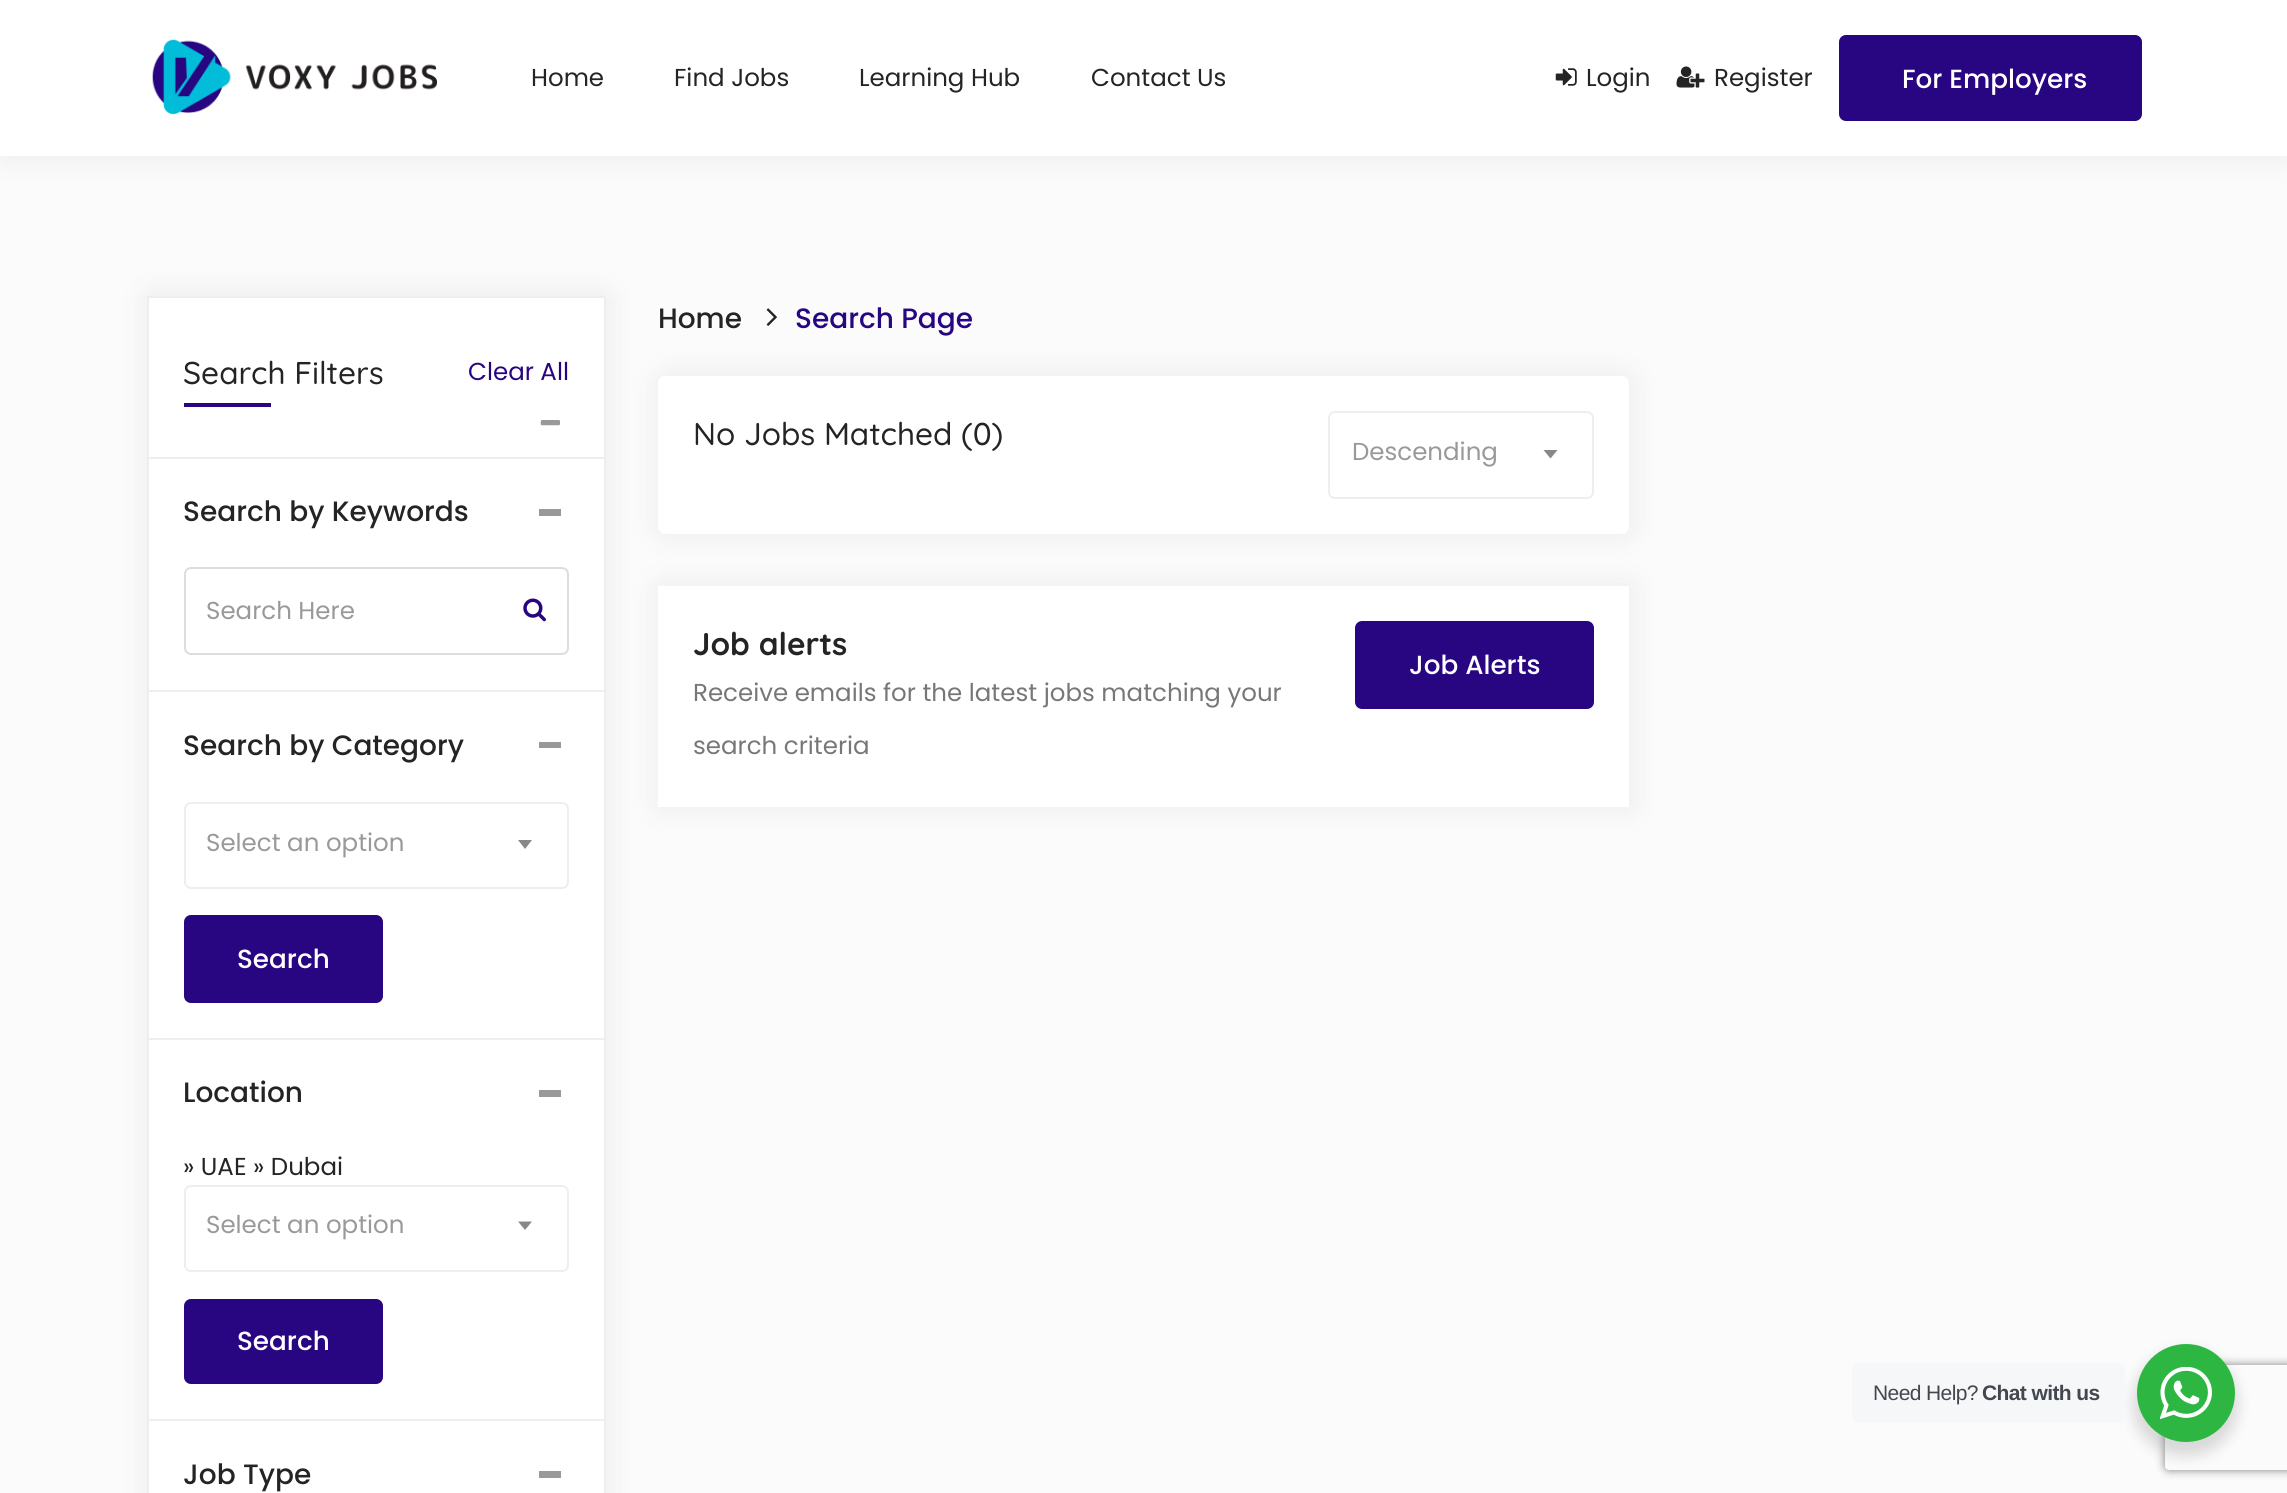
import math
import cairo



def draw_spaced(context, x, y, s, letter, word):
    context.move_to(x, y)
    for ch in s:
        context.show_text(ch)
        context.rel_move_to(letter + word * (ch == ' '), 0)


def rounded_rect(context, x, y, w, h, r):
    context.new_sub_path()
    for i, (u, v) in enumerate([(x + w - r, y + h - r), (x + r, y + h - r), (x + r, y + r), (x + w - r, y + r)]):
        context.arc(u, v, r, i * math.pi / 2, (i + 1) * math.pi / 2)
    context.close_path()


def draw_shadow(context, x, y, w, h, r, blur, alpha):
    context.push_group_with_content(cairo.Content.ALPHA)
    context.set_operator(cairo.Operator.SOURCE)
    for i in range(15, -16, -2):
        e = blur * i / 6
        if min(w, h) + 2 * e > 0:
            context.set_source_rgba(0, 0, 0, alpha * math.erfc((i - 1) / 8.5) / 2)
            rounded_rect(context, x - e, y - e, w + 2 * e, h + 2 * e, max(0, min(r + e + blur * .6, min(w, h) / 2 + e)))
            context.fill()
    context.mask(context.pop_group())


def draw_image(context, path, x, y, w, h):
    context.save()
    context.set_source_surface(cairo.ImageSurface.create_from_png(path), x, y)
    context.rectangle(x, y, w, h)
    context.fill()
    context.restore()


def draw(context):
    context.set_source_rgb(251 / 255, 251 / 255, 251 / 255)
    context.paint()
    context.set_source_rgb(0, 0, 0)
    draw_shadow(context, 2, 0, 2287, 156, 0, 17.5, 0.07)
    context.set_source_rgb(1, 1, 1)
    context.rectangle(0, 0, 2287, 156)
    context.fill()
    draw_image(context, "images/1.png", 152, 39, 285, 76)
    draw_image(context, "images/2.png", 1555, 68, 22, 18)
    draw_image(context, "images/3.png", 1676, 66, 29, 22)
    context.set_source_rgb(40 / 255, 6 / 255, 129 / 255)
    rounded_rect(context, 1840, 36, 301, 84, 6)
    context.fill_preserve()
    context.stroke()
    context.set_source_rgb(0, 0, 0)
    draw_shadow(context, 149, 296, 458, 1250, 0, 17.5, 0.07)
    context.set_source_rgb(1, 1, 1)
    context.rectangle(149, 298, 455, 159)
    context.fill()
    context.set_source_rgb(238 / 255, 238 / 255, 238 / 255)
    context.rectangle(147, 296, 459, 2)
    context.fill()
    context.rectangle(604, 296, 2, 161)
    context.fill()
    context.rectangle(147, 296, 2, 161)
    context.fill()
    context.set_source_rgb(40 / 255, 6 / 255, 129 / 255)
    context.rectangle(184, 403, 87, 4)
    context.fill()
    draw_image(context, "images/4.png", 540, 420, 20, 6)
    context.set_source_rgb(1, 1, 1)
    context.rectangle(149, 459, 455, 231)
    context.fill()
    context.set_source_rgb(238 / 255, 238 / 255, 238 / 255)
    context.rectangle(147, 457, 459, 2)
    context.fill()
    context.rectangle(604, 457, 2, 233)
    context.fill()
    context.rectangle(147, 457, 2, 233)
    context.fill()
    context.set_source_rgb(153 / 255, 153 / 255, 153 / 255)
    context.rectangle(539, 509, 22, 7)
    context.fill()
    rounded_rect(context, 185, 568, 383, 86, 6)
    context.set_source_rgb(221 / 255, 221 / 255, 221 / 255)
    context.stroke()
    draw_image(context, "images/5.png", 523, 598, 23, 24)
    context.set_source_rgb(1, 1, 1)
    context.rectangle(149, 692, 455, 346)
    context.fill()
    context.set_source_rgb(238 / 255, 238 / 255, 238 / 255)
    context.rectangle(147, 690, 459, 2)
    context.fill()
    context.rectangle(604, 690, 2, 348)
    context.fill()
    context.rectangle(147, 690, 2, 348)
    context.fill()
    context.set_source_rgb(153 / 255, 153 / 255, 153 / 255)
    context.rectangle(539, 742, 22, 6)
    context.fill()
    rounded_rect(context, 185, 803, 383, 85, 6)
    context.set_source_rgb(238 / 255, 238 / 255, 238 / 255)
    context.stroke()
    context.set_source_rgb(136 / 255, 136 / 255, 136 / 255)
    context.new_path()
    context.move_to(518, 840)
    context.line_to(532, 840)
    context.line_to(525, 849)
    context.close_path()
    context.fill()
    context.set_source_rgb(40 / 255, 6 / 255, 129 / 255)
    rounded_rect(context, 185, 916, 197, 86, 6)
    context.fill_preserve()
    context.stroke()
    context.set_source_rgb(1, 1, 1)
    context.rectangle(149, 1040, 455, 379)
    context.fill()
    context.set_source_rgb(238 / 255, 238 / 255, 238 / 255)
    context.rectangle(147, 1038, 459, 2)
    context.fill()
    context.rectangle(604, 1038, 2, 381)
    context.fill()
    context.rectangle(147, 1038, 2, 381)
    context.fill()
    context.set_source_rgb(153 / 255, 153 / 255, 153 / 255)
    context.rectangle(539, 1090, 22, 7)
    context.fill()
    rounded_rect(context, 185, 1186, 383, 85, 6)
    context.set_source_rgb(238 / 255, 238 / 255, 238 / 255)
    context.stroke()
    context.set_source_rgb(136 / 255, 136 / 255, 136 / 255)
    context.new_path()
    context.move_to(518, 1221.5)
    context.line_to(532, 1221.5)
    context.line_to(525, 1230)
    context.close_path()
    context.fill()
    context.set_source_rgb(40 / 255, 6 / 255, 129 / 255)
    rounded_rect(context, 185, 1300, 197, 83, 6)
    context.fill_preserve()
    context.stroke()
    context.set_source_rgb(1, 1, 1)
    context.rectangle(149, 1421, 455, 72)
    context.fill()
    context.set_source_rgb(238 / 255, 238 / 255, 238 / 255)
    context.rectangle(147, 1419, 459, 2)
    context.fill()
    context.rectangle(604, 1419, 2, 74)
    context.fill()
    context.rectangle(147, 1419, 2, 74)
    context.fill()
    context.set_source_rgb(153 / 255, 153 / 255, 153 / 255)
    context.rectangle(539, 1471, 22, 7)
    context.fill()
    draw_image(context, "images/6.png", 766, 308, 11, 18)
    context.set_source_rgb(0, 0, 0)
    draw_shadow(context, 660, 376, 971, 158, 7, 17.5, 0.07)
    context.set_source_rgb(1, 1, 1)
    rounded_rect(context, 658, 376, 971, 158, 7)
    context.fill()
    rounded_rect(context, 1329, 412, 264, 86, 6)
    context.set_source_rgb(238 / 255, 238 / 255, 238 / 255)
    context.stroke()
    context.set_source_rgb(136 / 255, 136 / 255, 136 / 255)
    context.new_path()
    context.move_to(1543.5, 450)
    context.line_to(1557.5, 450)
    context.line_to(1550.5, 458.5)
    context.close_path()
    context.fill()
    context.set_source_rgb(0, 0, 0)
    draw_shadow(context, 660, 586, 971, 221, 0, 17.5, 0.07)
    context.set_source_rgb(1, 1, 1)
    context.rectangle(658, 586, 971, 221)
    context.fill()
    context.set_source_rgb(40 / 255, 6 / 255, 129 / 255)
    rounded_rect(context, 1356, 622, 237, 86, 6)
    context.fill_preserve()
    context.stroke()
    context.set_source_rgb(0, 0, 0)
    draw_shadow(context, 2133, 1351, 105, 105, 52.5, 7, 0.14)
    context.set_source_rgb(245 / 255, 247 / 255, 249 / 255)
    rounded_rect(context, 1852, 1363, 273, 60, 7)
    context.fill()
    context.save()
    context.set_fill_rule(cairo.FillRule.EVEN_ODD)
    context.new_path()
    context.move_to(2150, 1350)
    context.line_to(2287, 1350)
    context.line_to(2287, 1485)
    context.line_to(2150, 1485)
    context.close_path()
    context.move_to(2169, 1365)
    context.line_to(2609, 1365)
    context.curve_to(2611, 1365, 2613, 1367, 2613, 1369)
    context.line_to(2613, 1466)
    context.curve_to(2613, 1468, 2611, 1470, 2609, 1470)
    context.line_to(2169, 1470)
    context.curve_to(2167, 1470, 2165, 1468, 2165, 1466)
    context.line_to(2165, 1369)
    context.curve_to(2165, 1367, 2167, 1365, 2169, 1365)
    context.close_path()
    context.clip()
    context.set_source_rgb(128 / 255, 128 / 255, 128 / 255)
    draw_shadow(context, 2165, 1365, 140, 105, 4, 4.5, 1)
    context.restore()
    context.set_source_rgb(45 / 255, 183 / 255, 66 / 255)
    context.arc(2186, 1393, 49, 0, 2 * math.pi)
    context.fill()
    draw_image(context, "images/7.png", 2160, 1367, 52, 52)
    context.select_font_face("Poppins")
    context.set_font_size(24.5)
    context.set_source_rgb(36 / 255, 36 / 255, 36 / 255)
    context.move_to(531, 86)
    context.show_text("Home")
    context.move_to(674, 86)
    context.show_text("Find Jobs")
    context.move_to(859, 86)
    context.show_text("Learning Hub")
    context.move_to(1091, 86)
    context.show_text("Contact Us")
    context.move_to(1586, 86)
    context.show_text("Login")
    context.move_to(1714, 86)
    context.show_text("Register")
    context.select_font_face("Poppins Medium")
    context.set_font_size(26.25)
    context.set_source_rgb(1, 1, 1)
    context.move_to(1902, 88)
    context.show_text("For Employers")
    context.select_font_face("Quicksand Medium")
    context.set_font_size(31.5)
    context.set_source_rgb(36 / 255, 36 / 255, 36 / 255)
    context.move_to(183, 384)
    context.show_text("Search Filters")
    context.select_font_face("Poppins")
    context.set_font_size(24.5)
    context.set_source_rgb(40 / 255, 6 / 255, 129 / 255)
    context.move_to(468, 380)
    context.show_text("Clear All")
    context.select_font_face("Poppins Medium")
    context.set_font_size(28)
    context.set_source_rgb(36 / 255, 36 / 255, 36 / 255)
    context.move_to(183, 521)
    context.show_text("Search by Keywords")
    context.select_font_face("Poppins")
    context.set_font_size(24.5)
    context.set_source_rgb(153 / 255, 153 / 255, 153 / 255)
    context.move_to(206, 619)
    context.show_text("Search Here")
    context.select_font_face("Poppins Medium")
    context.set_font_size(28)
    context.set_source_rgb(36 / 255, 36 / 255, 36 / 255)
    context.move_to(183, 755)
    context.show_text("Search by Category")
    context.select_font_face("Poppins")
    context.set_font_size(24.5)
    context.set_source_rgb(153 / 255, 153 / 255, 153 / 255)
    context.move_to(206, 851)
    context.show_text("Select an option")
    context.select_font_face("Poppins Medium")
    context.set_font_size(26.25)
    context.set_source_rgb(1, 1, 1)
    context.move_to(237, 968)
    context.show_text("Search")
    context.set_font_size(28)
    context.set_source_rgb(36 / 255, 36 / 255, 36 / 255)
    context.move_to(183, 1102)
    context.show_text("Location")
    context.select_font_face("Poppins")
    context.set_font_size(24.5)
    context.move_to(183, 1175)
    context.show_text("» UAE » Dubai")
    context.set_source_rgb(153 / 255, 153 / 255, 153 / 255)
    context.move_to(206, 1233)
    context.show_text("Select an option")
    context.select_font_face("Poppins Medium")
    context.set_font_size(26.25)
    context.set_source_rgb(1, 1, 1)
    context.move_to(237, 1350)
    context.show_text("Search")
    context.set_font_size(28)
    context.set_source_rgb(36 / 255, 36 / 255, 36 / 255)
    context.move_to(183, 1484)
    context.show_text("Job Type")
    context.move_to(658, 328)
    context.show_text("Home")
    context.set_source_rgb(40 / 255, 6 / 255, 129 / 255)
    context.move_to(795, 328)
    context.show_text("Search Page")
    context.select_font_face("Quicksand Medium")
    context.set_font_size(31.5)
    context.set_source_rgb(36 / 255, 36 / 255, 36 / 255)
    context.move_to(693, 445)
    context.show_text("No Jobs Matched (0)")
    context.select_font_face("Poppins")
    context.set_font_size(24.5)
    context.set_source_rgb(153 / 255, 153 / 255, 153 / 255)
    context.move_to(1352, 460)
    context.show_text("Descending")
    context.select_font_face("Quicksand", cairo.FontSlant.NORMAL, cairo.FontWeight.BOLD)
    context.set_font_size(31.5)
    context.set_source_rgb(36 / 255, 36 / 255, 36 / 255)
    context.move_to(693, 655)
    context.show_text("Job alerts")
    context.select_font_face("Poppins")
    context.set_font_size(24.5)
    context.set_source_rgb(119 / 255, 119 / 255, 119 / 255)
    context.move_to(693, 701)
    context.show_text("Receive emails for the latest jobs matching your")
    context.move_to(693, 754)
    context.show_text("search criteria")
    context.select_font_face("Poppins Medium")
    context.set_font_size(26.25)
    context.set_source_rgb(1, 1, 1)
    context.move_to(1409, 674)
    context.show_text("Job Alerts")
    context.select_font_face("Liberation Sans")
    context.set_font_size(21)
    context.set_source_rgb(67 / 255, 71 / 255, 78 / 255)
    draw_spaced(context, 1873, 1400, "Need Help?", -0.6, 0)
    context.select_font_face("Liberation Sans", cairo.FontSlant.NORMAL, cairo.FontWeight.BOLD)
    draw_spaced(context, 1982, 1400, "Chat with us", -0.6, 0)


surface = cairo.ImageSurface(cairo.Format.RGB24, 2287, 1493)
context = cairo.Context(surface)
options = cairo.FontOptions()
options.set_hint_metrics(cairo.HintMetrics.OFF)
options.set_hint_style(cairo.HintStyle.NONE)
context.set_font_options(options)
context.set_miter_limit(4)
draw(context)
surface.write_to_png("out.png")
